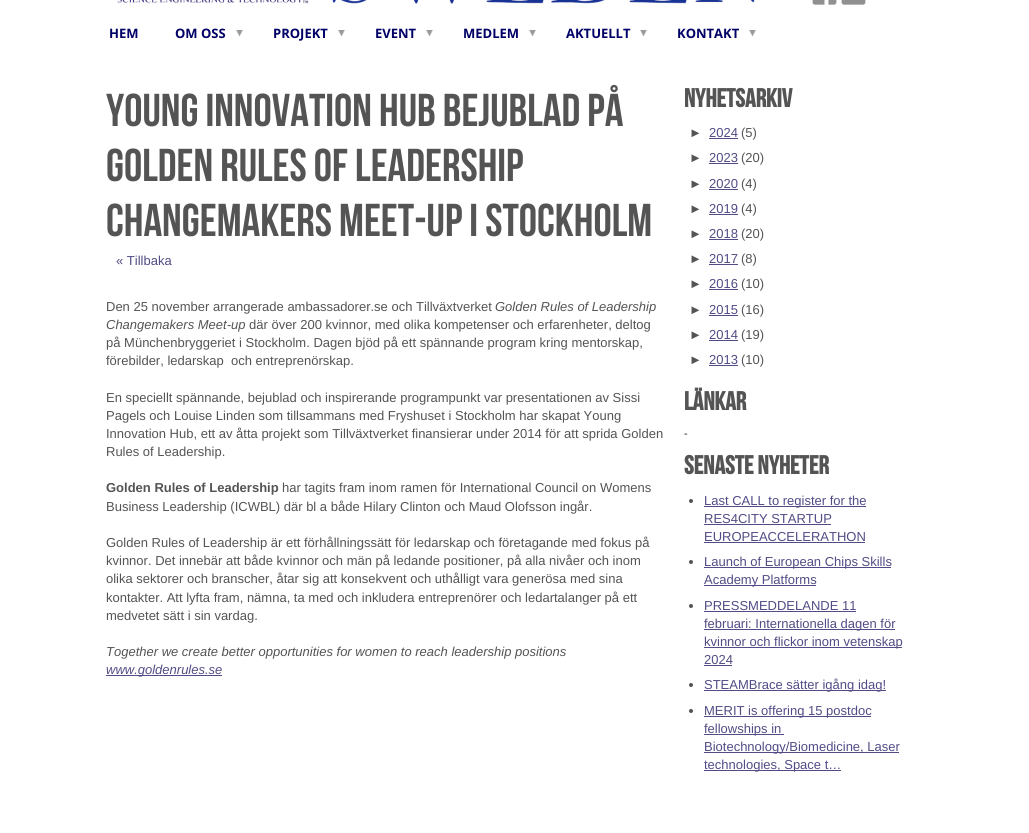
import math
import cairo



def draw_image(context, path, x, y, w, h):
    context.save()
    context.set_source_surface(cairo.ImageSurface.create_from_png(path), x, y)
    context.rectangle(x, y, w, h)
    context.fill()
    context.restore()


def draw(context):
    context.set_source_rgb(1, 1, 1)
    context.paint()
    draw_image(context, "images/1.png", 117, 0, 638, 4)
    draw_image(context, "images/2.png", 812, 0, 25, 5)
    draw_image(context, "images/3.png", 841, 0, 25, 5)
    draw_image(context, "images/4.png", 236, 30, 7, 7)
    draw_image(context, "images/4.png", 338, 30, 7, 7)
    draw_image(context, "images/4.png", 426, 30, 7, 7)
    draw_image(context, "images/4.png", 529, 30, 7, 7)
    draw_image(context, "images/4.png", 640, 30, 7, 7)
    draw_image(context, "images/4.png", 749, 30, 7, 7)
    context.set_source_rgb(81 / 255, 76 / 255, 133 / 255)
    context.rectangle(106, 675, 116, 1)
    context.fill()
    context.rectangle(709, 138, 29, 1)
    context.fill()
    context.rectangle(709, 163, 29, 1)
    context.fill()
    context.rectangle(709, 189, 29, 1)
    context.fill()
    context.rectangle(709, 214, 29, 1)
    context.fill()
    context.rectangle(709, 239, 29, 1)
    context.fill()
    context.rectangle(709, 264, 29, 1)
    context.fill()
    context.rectangle(709, 289, 29, 1)
    context.fill()
    context.rectangle(709, 315, 29, 1)
    context.fill()
    context.rectangle(709, 340, 29, 1)
    context.fill()
    context.rectangle(709, 365, 29, 1)
    context.fill()
    context.set_source_rgb(84 / 255, 84 / 255, 84 / 255)
    context.arc(691, 501, 2, 0, 2 * math.pi)
    context.fill()
    context.set_source_rgb(81 / 255, 76 / 255, 133 / 255)
    context.rectangle(704, 506, 162, 1)
    context.fill()
    context.rectangle(704, 524, 127, 1)
    context.fill()
    context.rectangle(704, 542, 161, 1)
    context.fill()
    context.set_source_rgb(84 / 255, 84 / 255, 84 / 255)
    context.arc(691, 562, 2, 0, 2 * math.pi)
    context.fill()
    context.set_source_rgb(81 / 255, 76 / 255, 133 / 255)
    context.rectangle(704, 567, 187, 1)
    context.fill()
    context.rectangle(704, 585, 112, 1)
    context.fill()
    context.set_source_rgb(84 / 255, 84 / 255, 84 / 255)
    context.arc(691, 606, 2, 0, 2 * math.pi)
    context.fill()
    context.set_source_rgb(81 / 255, 76 / 255, 133 / 255)
    context.rectangle(704, 611, 152, 1)
    context.fill()
    context.rectangle(704, 629, 191, 1)
    context.fill()
    context.rectangle(704, 647, 198, 1)
    context.fill()
    context.rectangle(704, 665, 28, 1)
    context.fill()
    context.set_source_rgb(84 / 255, 84 / 255, 84 / 255)
    context.arc(691, 685, 2, 0, 2 * math.pi)
    context.fill()
    context.set_source_rgb(81 / 255, 76 / 255, 133 / 255)
    context.rectangle(704, 690, 182, 1)
    context.fill()
    context.set_source_rgb(84 / 255, 84 / 255, 84 / 255)
    context.arc(691, 711, 2, 0, 2 * math.pi)
    context.fill()
    context.set_source_rgb(81 / 255, 76 / 255, 133 / 255)
    context.rectangle(704, 716, 167, 1)
    context.fill()
    context.rectangle(704, 734, 80, 1)
    context.fill()
    context.rectangle(704, 752, 195, 1)
    context.fill()
    context.rectangle(704, 770, 137, 1)
    context.fill()
    context.select_font_face("Open Sans", cairo.FontSlant.NORMAL, cairo.FontWeight.BOLD)
    context.set_font_size(13)
    context.set_source_rgb(0, 0, 102 / 255)
    context.move_to(109, 38)
    context.show_text("HEM")
    context.move_to(175, 38)
    context.show_text("OM OSS")
    context.move_to(273, 38)
    context.show_text("PROJEKT")
    context.move_to(375, 38)
    context.show_text("EVENT")
    context.move_to(463, 38)
    context.show_text("MEDLEM")
    context.move_to(566, 38)
    context.show_text("AKTUELLT")
    context.move_to(677, 38)
    context.show_text("KONTAKT")
    context.select_font_face("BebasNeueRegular")
    context.set_font_size(46)
    context.set_source_rgb(84 / 255, 84 / 255, 84 / 255)
    context.move_to(106, 126)
    context.show_text("Young Innovation Hub bejublad på")
    context.move_to(106, 181)
    context.show_text("Golden Rules of Leadership")
    context.move_to(106, 236)
    context.show_text("Changemakers Meet-up i Stockholm")
    context.select_font_face("Liberation Sans")
    context.set_font_size(13)
    context.set_source_rgb(81 / 255, 76 / 255, 133 / 255)
    context.move_to(116, 265)
    context.show_text("« Tillbaka")
    context.set_source_rgb(84 / 255, 84 / 255, 84 / 255)
    context.move_to(106, 311)
    context.show_text("Den 25 november arrangerade ambassadorer.se och Tillväxtverket")
    context.select_font_face("Liberation Sans", cairo.FontSlant.ITALIC)
    context.move_to(495, 311)
    context.show_text("Golden Rules of Leadership")
    context.move_to(106, 329)
    context.show_text("Changemakers Meet-up")
    context.select_font_face("Liberation Sans")
    context.move_to(249, 329)
    context.show_text("där över 200 kvinnor, med olika kompetenser och erfarenheter, deltog")
    context.move_to(106, 347)
    context.show_text("på Münchenbryggeriet i Stockholm. Dagen bjöd på ett spännande program kring mentorskap,")
    context.move_to(106, 365)
    context.show_text("förebilder, ledarskap  och entreprenörskap.")
    context.move_to(106, 402)
    context.show_text("En speciellt spännande, bejublad och inspirerande programpunkt var presentationen av Sissi")
    context.move_to(106, 420)
    context.show_text("Pagels och Louise Linden som tillsammans med Fryshuset i Stockholm har skapat Young")
    context.move_to(106, 438)
    context.show_text("Innovation Hub, ett av åtta projekt som Tillväxtverket finansierar under 2014 för att sprida Golden")
    context.move_to(106, 456)
    context.show_text("Rules of Leadership.")
    context.select_font_face("Liberation Sans", cairo.FontSlant.NORMAL, cairo.FontWeight.BOLD)
    context.move_to(106, 492)
    context.show_text("Golden Rules of Leadership")
    context.select_font_face("Liberation Sans")
    context.move_to(282, 492)
    context.show_text("har tagits fram inom ramen för International Council on Womens")
    context.move_to(106, 511)
    context.show_text("Business Leadership (ICWBL) där bl a både Hilary Clinton och Maud Olofsson ingår.")
    context.move_to(106, 547)
    context.show_text("Golden Rules of Leadership är ett förhållningssätt för ledarskap och företagande med fokus på")
    context.move_to(106, 565)
    context.show_text("kvinnor. Det innebär att både kvinnor och män på ledande positioner, på alla nivåer och inom")
    context.move_to(106, 583)
    context.show_text("olika sektorer och branscher, åtar sig att konsekvent och uthålligt vara generösa med sina")
    context.move_to(106, 602)
    context.show_text("kontakter. Att lyfta fram, nämna, ta med och inkludera entreprenörer och ledartalanger på ett")
    context.move_to(106, 620)
    context.show_text("medvetet sätt i sin vardag.")
    context.select_font_face("Liberation Sans", cairo.FontSlant.ITALIC)
    context.move_to(106, 656)
    context.show_text("Together we create better opportunities for women to reach leadership positions")
    context.set_source_rgb(81 / 255, 76 / 255, 133 / 255)
    context.move_to(106, 674)
    context.show_text("www.goldenrules.se")
    context.select_font_face("BebasNeueRegular", cairo.FontSlant.NORMAL, cairo.FontWeight.BOLD)
    context.set_font_size(26)
    context.set_source_rgb(84 / 255, 84 / 255, 84 / 255)
    context.move_to(684, 107)
    context.show_text("Nyhetsarkiv")
    context.select_font_face("Liberation Sans")
    context.set_font_size(13)
    context.move_to(689, 137)
    context.show_text("►")
    context.set_source_rgb(81 / 255, 76 / 255, 133 / 255)
    context.move_to(709, 137)
    context.show_text("2024")
    context.set_source_rgb(84 / 255, 84 / 255, 84 / 255)
    context.move_to(741, 137)
    context.show_text("(5)")
    context.move_to(689, 162)
    context.show_text("►")
    context.set_source_rgb(81 / 255, 76 / 255, 133 / 255)
    context.move_to(709, 162)
    context.show_text("2023")
    context.set_source_rgb(84 / 255, 84 / 255, 84 / 255)
    context.move_to(741, 162)
    context.show_text("(20)")
    context.move_to(689, 188)
    context.show_text("►")
    context.set_source_rgb(81 / 255, 76 / 255, 133 / 255)
    context.move_to(709, 188)
    context.show_text("2020")
    context.set_source_rgb(84 / 255, 84 / 255, 84 / 255)
    context.move_to(741, 188)
    context.show_text("(4)")
    context.move_to(689, 213)
    context.show_text("►")
    context.set_source_rgb(81 / 255, 76 / 255, 133 / 255)
    context.move_to(709, 213)
    context.show_text("2019")
    context.set_source_rgb(84 / 255, 84 / 255, 84 / 255)
    context.move_to(741, 213)
    context.show_text("(4)")
    context.move_to(689, 238)
    context.show_text("►")
    context.set_source_rgb(81 / 255, 76 / 255, 133 / 255)
    context.move_to(709, 238)
    context.show_text("2018")
    context.set_source_rgb(84 / 255, 84 / 255, 84 / 255)
    context.move_to(741, 238)
    context.show_text("(20)")
    context.move_to(689, 263)
    context.show_text("►")
    context.set_source_rgb(81 / 255, 76 / 255, 133 / 255)
    context.move_to(709, 263)
    context.show_text("2017")
    context.set_source_rgb(84 / 255, 84 / 255, 84 / 255)
    context.move_to(741, 263)
    context.show_text("(8)")
    context.move_to(689, 288)
    context.show_text("►")
    context.set_source_rgb(81 / 255, 76 / 255, 133 / 255)
    context.move_to(709, 288)
    context.show_text("2016")
    context.set_source_rgb(84 / 255, 84 / 255, 84 / 255)
    context.move_to(741, 288)
    context.show_text("(10)")
    context.move_to(689, 314)
    context.show_text("►")
    context.set_source_rgb(81 / 255, 76 / 255, 133 / 255)
    context.move_to(709, 314)
    context.show_text("2015")
    context.set_source_rgb(84 / 255, 84 / 255, 84 / 255)
    context.move_to(741, 314)
    context.show_text("(16)")
    context.move_to(689, 339)
    context.show_text("►")
    context.set_source_rgb(81 / 255, 76 / 255, 133 / 255)
    context.move_to(709, 339)
    context.show_text("2014")
    context.set_source_rgb(84 / 255, 84 / 255, 84 / 255)
    context.move_to(741, 339)
    context.show_text("(19)")
    context.move_to(689, 364)
    context.show_text("►")
    context.set_source_rgb(81 / 255, 76 / 255, 133 / 255)
    context.move_to(709, 364)
    context.show_text("2013")
    context.set_source_rgb(84 / 255, 84 / 255, 84 / 255)
    context.move_to(741, 364)
    context.show_text("(10)")
    context.select_font_face("BebasNeueRegular", cairo.FontSlant.NORMAL, cairo.FontWeight.BOLD)
    context.set_font_size(26)
    context.move_to(684, 410)
    context.show_text("Länkar")
    context.select_font_face("Liberation Sans")
    context.set_font_size(11)
    context.set_source_rgb(34 / 255, 34 / 255, 34 / 255)
    context.move_to(684, 437)
    context.show_text("-")
    context.select_font_face("BebasNeueRegular", cairo.FontSlant.NORMAL, cairo.FontWeight.BOLD)
    context.set_font_size(26)
    context.set_source_rgb(84 / 255, 84 / 255, 84 / 255)
    context.move_to(684, 474)
    context.show_text("Senaste nyheter")
    context.select_font_face("Liberation Sans")
    context.set_font_size(13)
    context.set_source_rgb(81 / 255, 76 / 255, 133 / 255)
    context.move_to(704, 505)
    context.show_text("Last CALL to register for the")
    context.move_to(704, 523)
    context.show_text("RES4CITY STARTUP")
    context.move_to(704, 541)
    context.show_text("EUROPEACCELERATHON")
    context.move_to(704, 566)
    context.show_text("Launch of European Chips Skills")
    context.move_to(704, 584)
    context.show_text("Academy Platforms")
    context.move_to(704, 610)
    context.show_text("PRESSMEDDELANDE 11")
    context.move_to(704, 628)
    context.show_text("februari: Internationella dagen för")
    context.move_to(704, 646)
    context.show_text("kvinnor och flickor inom vetenskap")
    context.move_to(704, 664)
    context.show_text("2024")
    context.move_to(704, 689)
    context.show_text("STEAMBrace sätter igång idag!")
    context.move_to(704, 715)
    context.show_text("MERIT is offering 15 postdoc")
    context.move_to(704, 733)
    context.show_text("fellowships in")
    context.move_to(704, 751)
    context.show_text("Biotechnology/Biomedicine, Laser")
    context.move_to(704, 769)
    context.show_text("technologies, Space t…")


surface = cairo.ImageSurface(cairo.Format.RGB24, 1029, 833)
context = cairo.Context(surface)
options = cairo.FontOptions()
options.set_hint_metrics(cairo.HintMetrics.OFF)
options.set_hint_style(cairo.HintStyle.NONE)
context.set_font_options(options)
context.set_miter_limit(4)
draw(context)
surface.write_to_png("out.png")
